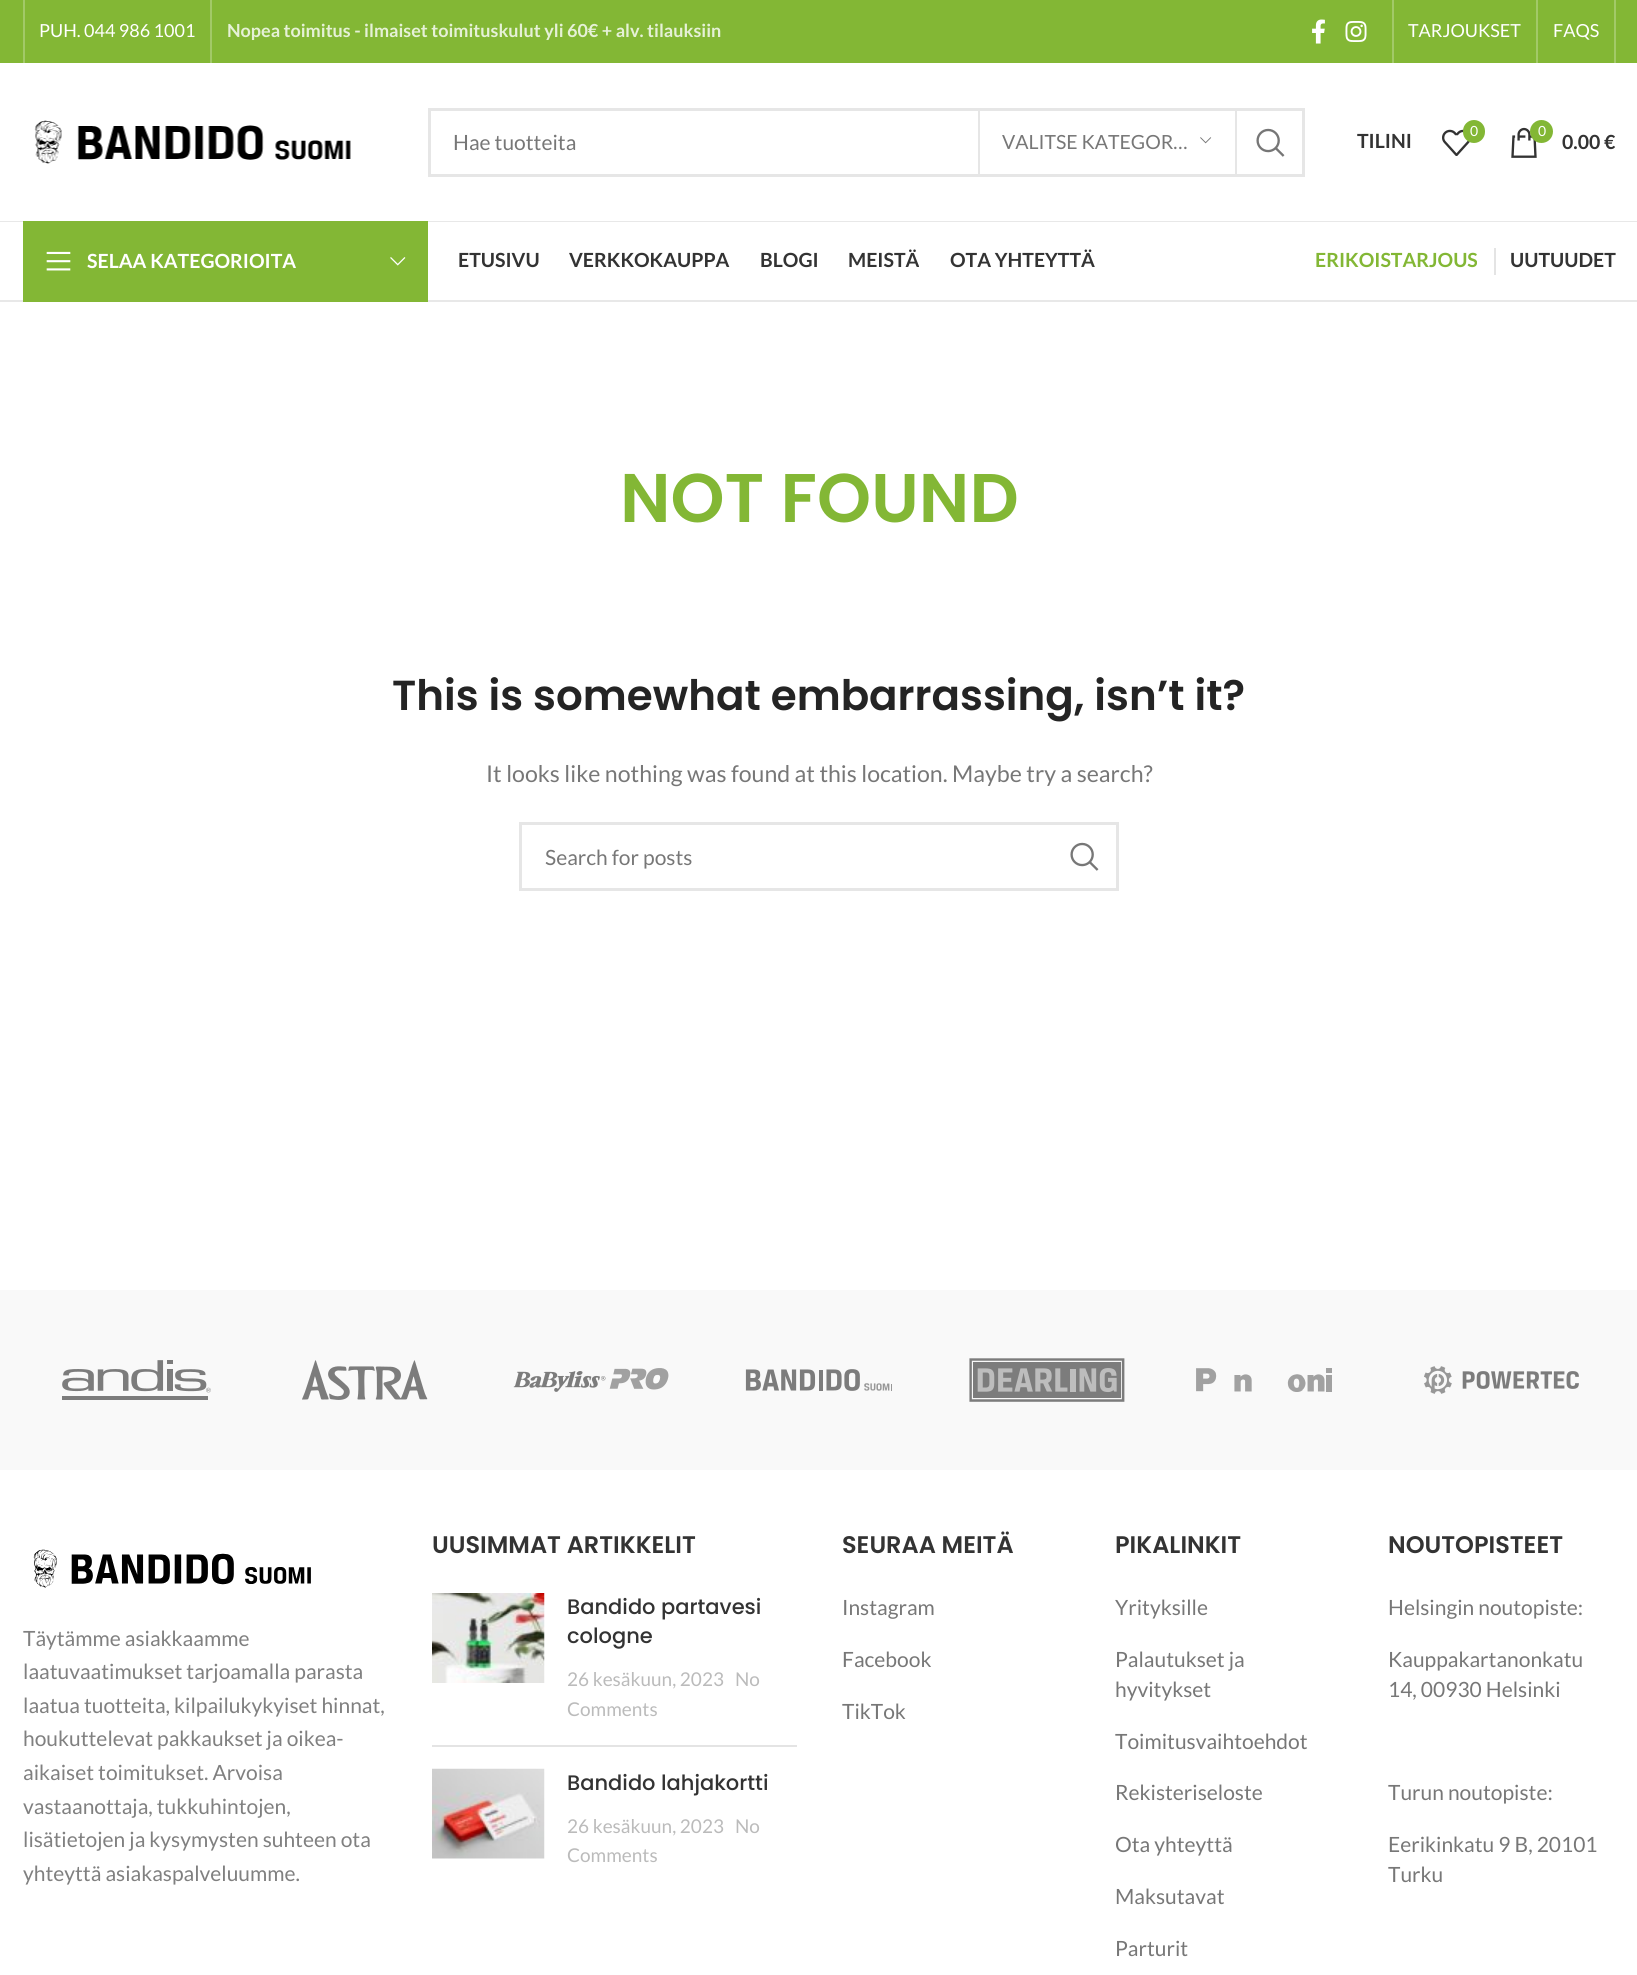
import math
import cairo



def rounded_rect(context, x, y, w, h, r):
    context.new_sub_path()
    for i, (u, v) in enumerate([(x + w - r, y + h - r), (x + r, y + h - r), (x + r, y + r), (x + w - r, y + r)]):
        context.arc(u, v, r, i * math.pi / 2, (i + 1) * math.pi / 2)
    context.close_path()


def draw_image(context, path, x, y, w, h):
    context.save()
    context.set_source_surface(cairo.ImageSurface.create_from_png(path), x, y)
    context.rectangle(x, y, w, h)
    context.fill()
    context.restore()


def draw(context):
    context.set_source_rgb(1, 1, 1)
    context.paint()
    context.set_source_rgb(131 / 255, 183 / 255, 53 / 255)
    context.rectangle(0, 0, 1637, 63)
    context.fill()
    context.set_source_rgb(162 / 255, 201 / 255, 104 / 255)
    context.rectangle(23, 0, 2, 63)
    context.fill()
    context.rectangle(210, 0, 2, 63)
    context.fill()
    draw_image(context, "images/1.png", 1312, 19, 13, 25)
    draw_image(context, "images/2.png", 1345, 21, 22, 21)
    context.rectangle(1392, 0, 2, 63)
    context.fill()
    context.rectangle(1536, 0, 2, 63)
    context.fill()
    context.rectangle(1614, 0, 2, 63)
    context.fill()
    context.set_source_rgb(232 / 255, 232 / 255, 232 / 255)
    context.rectangle(0, 221, 1637, 1)
    context.fill()
    draw_image(context, "images/3.png", 34, 120, 317, 44)
    context.rectangle(429.5, 109.5, 874, 66)
    context.set_source_rgb(230 / 255, 230 / 255, 230 / 255)
    context.set_line_width(3)
    context.stroke()
    context.rectangle(1235, 111, 2, 63)
    context.fill()
    context.rectangle(978, 111, 2, 63)
    context.fill()
    draw_image(context, "images/4.png", 1200, 137, 12, 7)
    draw_image(context, "images/5.png", 1256, 128, 29, 29)
    draw_image(context, "images/6.png", 1442, 129, 28, 27)
    context.set_source_rgb(131 / 255, 183 / 255, 53 / 255)
    rounded_rect(context, 1463, 120, 22, 23, 11)
    context.fill()
    draw_image(context, "images/7.png", 1511, 127, 26, 31)
    context.arc(1541.5, 131.5, 11.5, 0, 2 * math.pi)
    context.fill()
    context.set_source_rgb(232 / 255, 232 / 255, 232 / 255)
    context.rectangle(0, 300, 1637, 2)
    context.fill()
    context.set_source_rgb(131 / 255, 183 / 255, 53 / 255)
    context.rectangle(23, 221, 405, 81)
    context.fill()
    draw_image(context, "images/8.png", 46, 251, 25, 20)
    draw_image(context, "images/9.png", 390, 257, 16, 9)
    context.set_source_rgb(228 / 255, 228 / 255, 228 / 255)
    context.rectangle(1494, 248, 2, 27)
    context.fill()
    context.rectangle(520.5, 823.5, 597, 66)
    context.set_source_rgb(230 / 255, 230 / 255, 230 / 255)
    context.stroke()
    draw_image(context, "images/10.png", 1070, 842, 29, 29)
    context.set_source_rgb(249 / 255, 249 / 255, 249 / 255)
    context.rectangle(0, 1290, 1637, 180)
    context.fill()
    draw_image(context, "images/11.png", 62, 1360, 149, 40)
    draw_image(context, "images/12.png", 302, 1360, 126, 40)
    draw_image(context, "images/13.png", 513, 1368, 156, 24)
    draw_image(context, "images/14.png", 745, 1369, 147, 22)
    draw_image(context, "images/15.png", 969, 1358, 156, 44)
    draw_image(context, "images/16.png", 1196, 1368, 136, 24)
    draw_image(context, "images/17.png", 1424, 1366, 155, 28)
    draw_image(context, "images/18.png", 33, 1549, 278, 39)
    context.set_source_rgb(228 / 255, 228 / 255, 228 / 255)
    context.rectangle(432, 1745, 365, 2)
    context.fill()
    draw_image(context, "images/19.png", 432, 1593, 113, 90)
    draw_image(context, "images/20.png", 432, 1768, 113, 91)
    context.select_font_face("Lato")
    context.set_font_size(18)
    context.set_source_rgb(1, 1, 1)
    context.move_to(39, 37)
    context.show_text("PUH. 044 986 1001")
    context.select_font_face("Lato", cairo.FontSlant.NORMAL, cairo.FontWeight.BOLD)
    context.set_source_rgb(230 / 255, 241 / 255, 215 / 255)
    context.move_to(227, 37)
    context.show_text("Nopea toimitus - ilmaiset toimituskulut yli 60€ + alv. tilauksiin")
    context.select_font_face("Lato")
    context.set_source_rgb(1, 1, 1)
    context.move_to(1408, 37)
    context.show_text("TARJOUKSET")
    context.move_to(1553, 37)
    context.show_text("FAQS")
    context.set_font_size(21)
    context.set_source_rgb(119 / 255, 119 / 255, 119 / 255)
    context.move_to(453, 150)
    context.show_text("Hae tuotteita")
    context.set_font_size(19.5)
    context.move_to(1002, 149)
    context.show_text("VALITSE KATEGOR…")
    context.select_font_face("Lato", cairo.FontSlant.NORMAL, cairo.FontWeight.BOLD)
    context.set_source_rgb(51 / 255, 51 / 255, 51 / 255)
    context.move_to(1357, 148)
    context.show_text("TILINI")
    context.select_font_face("Lato")
    context.set_font_size(14)
    context.set_source_rgb(1, 1, 1)
    context.move_to(1470, 136)
    context.show_text("0")
    context.move_to(1538, 136)
    context.show_text("0")
    context.select_font_face("Lato", cairo.FontSlant.NORMAL, cairo.FontWeight.BOLD)
    context.set_font_size(19.5)
    context.set_source_rgb(51 / 255, 51 / 255, 51 / 255)
    context.move_to(1562, 149)
    context.show_text("0.00 €")
    context.set_source_rgb(1, 1, 1)
    context.move_to(87, 268)
    context.show_text("SELAA KATEGORIOITA")
    context.set_source_rgb(51 / 255, 51 / 255, 51 / 255)
    context.move_to(458, 267)
    context.show_text("ETUSIVU")
    context.move_to(569, 267)
    context.show_text("VERKKOKAUPPA")
    context.move_to(760, 267)
    context.show_text("BLOGI")
    context.move_to(848, 267)
    context.show_text("MEISTÄ")
    context.move_to(950, 267)
    context.show_text("OTA YHTEYTTÄ")
    context.set_source_rgb(131 / 255, 183 / 255, 53 / 255)
    context.move_to(1315, 267)
    context.show_text("ERIKOISTARJOUS")
    context.set_source_rgb(51 / 255, 51 / 255, 51 / 255)
    context.move_to(1510, 267)
    context.show_text("UUTUUDET")
    context.select_font_face("Poppins SemiBold")
    context.set_font_size(68.75)
    context.set_source_rgb(131 / 255, 183 / 255, 53 / 255)
    context.move_to(620, 522)
    context.show_text("NOT FOUND")
    context.set_font_size(42)
    context.set_source_rgb(36 / 255, 36 / 255, 36 / 255)
    context.move_to(392, 710)
    context.show_text("This is somewhat embarrassing, isn’t it?")
    context.select_font_face("Lato")
    context.set_font_size(23.1)
    context.set_source_rgb(119 / 255, 119 / 255, 119 / 255)
    context.move_to(486, 782)
    context.show_text("It looks like nothing was found at this location. Maybe try a search?")
    context.set_font_size(21)
    context.move_to(545, 865)
    context.show_text("Search for posts")
    context.set_source_rgb(128 / 255, 128 / 255, 128 / 255)
    context.move_to(23, 1646)
    context.show_text("Täytämme asiakkaamme")
    context.move_to(23, 1679)
    context.show_text("laatuvaatimukset tarjoamalla parasta")
    context.move_to(23, 1713)
    context.show_text("laatua tuotteita, kilpailukykyiset hinnat,")
    context.move_to(23, 1746)
    context.show_text("houkuttelevat pakkaukset ja oikea-")
    context.move_to(23, 1780)
    context.show_text("aikaiset toimitukset. Arvoisa")
    context.move_to(23, 1814)
    context.show_text("vastaanottaja, tukkuhintojen,")
    context.move_to(23, 1847)
    context.show_text("lisätietojen ja kysymysten suhteen ota")
    context.move_to(23, 1881)
    context.show_text("yhteyttä asiakaspalveluumme.")
    context.select_font_face("Poppins SemiBold")
    context.set_font_size(24)
    context.set_source_rgb(51 / 255, 51 / 255, 51 / 255)
    context.move_to(432, 1553)
    context.show_text("UUSIMMAT ARTIKKELIT")
    context.select_font_face("Poppins Medium")
    context.set_font_size(21)
    context.move_to(567, 1614)
    context.show_text("Bandido partavesi")
    context.move_to(567, 1643)
    context.show_text("cologne")
    context.select_font_face("Lato")
    context.set_font_size(19)
    context.set_source_rgb(187 / 255, 187 / 255, 187 / 255)
    context.move_to(567, 1686)
    context.show_text("26 kesäkuun, 2023")
    context.move_to(735, 1686)
    context.show_text("No")
    context.move_to(567, 1716)
    context.show_text("Comments")
    context.select_font_face("Poppins Medium")
    context.set_font_size(21)
    context.set_source_rgb(51 / 255, 51 / 255, 51 / 255)
    context.move_to(567, 1790)
    context.show_text("Bandido lahjakortti")
    context.select_font_face("Lato")
    context.set_font_size(19)
    context.set_source_rgb(187 / 255, 187 / 255, 187 / 255)
    context.move_to(567, 1833)
    context.show_text("26 kesäkuun, 2023")
    context.move_to(735, 1833)
    context.show_text("No")
    context.move_to(567, 1862)
    context.show_text("Comments")
    context.select_font_face("Poppins SemiBold")
    context.set_font_size(24)
    context.set_source_rgb(51 / 255, 51 / 255, 51 / 255)
    context.move_to(842, 1553)
    context.show_text("SEURAA MEITÄ")
    context.select_font_face("Lato")
    context.set_font_size(21)
    context.set_source_rgb(119 / 255, 119 / 255, 119 / 255)
    context.move_to(842, 1615)
    context.show_text("Instagram")
    context.move_to(842, 1667)
    context.show_text("Facebook")
    context.move_to(842, 1719)
    context.show_text("TikTok")
    context.select_font_face("Poppins SemiBold")
    context.set_font_size(24)
    context.set_source_rgb(51 / 255, 51 / 255, 51 / 255)
    context.move_to(1115, 1553)
    context.show_text("PIKALINKIT")
    context.select_font_face("Lato")
    context.set_font_size(21)
    context.set_source_rgb(119 / 255, 119 / 255, 119 / 255)
    context.move_to(1115, 1615)
    context.show_text("Yrityksille")
    context.move_to(1115, 1667)
    context.show_text("Palautukset ja")
    context.move_to(1115, 1697)
    context.show_text("hyvitykset")
    context.move_to(1115, 1749)
    context.show_text("Toimitusvaihtoehdot")
    context.move_to(1115, 1800)
    context.show_text("Rekisteriseloste")
    context.move_to(1115, 1852)
    context.show_text("Ota yhteyttä")
    context.move_to(1115, 1904)
    context.show_text("Maksutavat")
    context.move_to(1115, 1956)
    context.show_text("Parturit")
    context.select_font_face("Poppins SemiBold")
    context.set_font_size(24)
    context.set_source_rgb(51 / 255, 51 / 255, 51 / 255)
    context.move_to(1388, 1553)
    context.show_text("NOUTOPISTEET")
    context.select_font_face("Lato")
    context.set_font_size(21)
    context.set_source_rgb(119 / 255, 119 / 255, 119 / 255)
    context.move_to(1388, 1615)
    context.show_text("Helsingin noutopiste:")
    context.move_to(1388, 1667)
    context.show_text("Kauppakartanonkatu")
    context.move_to(1388, 1697)
    context.show_text("14, 00930 Helsinki")
    context.move_to(1388, 1800)
    context.show_text("Turun noutopiste:")
    context.move_to(1388, 1852)
    context.show_text("Eerikinkatu 9 B, 20101")
    context.move_to(1388, 1882)
    context.show_text("Turku")


surface = cairo.ImageSurface(cairo.Format.RGB24, 1637, 1975)
context = cairo.Context(surface)
options = cairo.FontOptions()
options.set_hint_metrics(cairo.HintMetrics.OFF)
options.set_hint_style(cairo.HintStyle.NONE)
context.set_font_options(options)
context.set_miter_limit(4)
draw(context)
surface.write_to_png("out.png")
